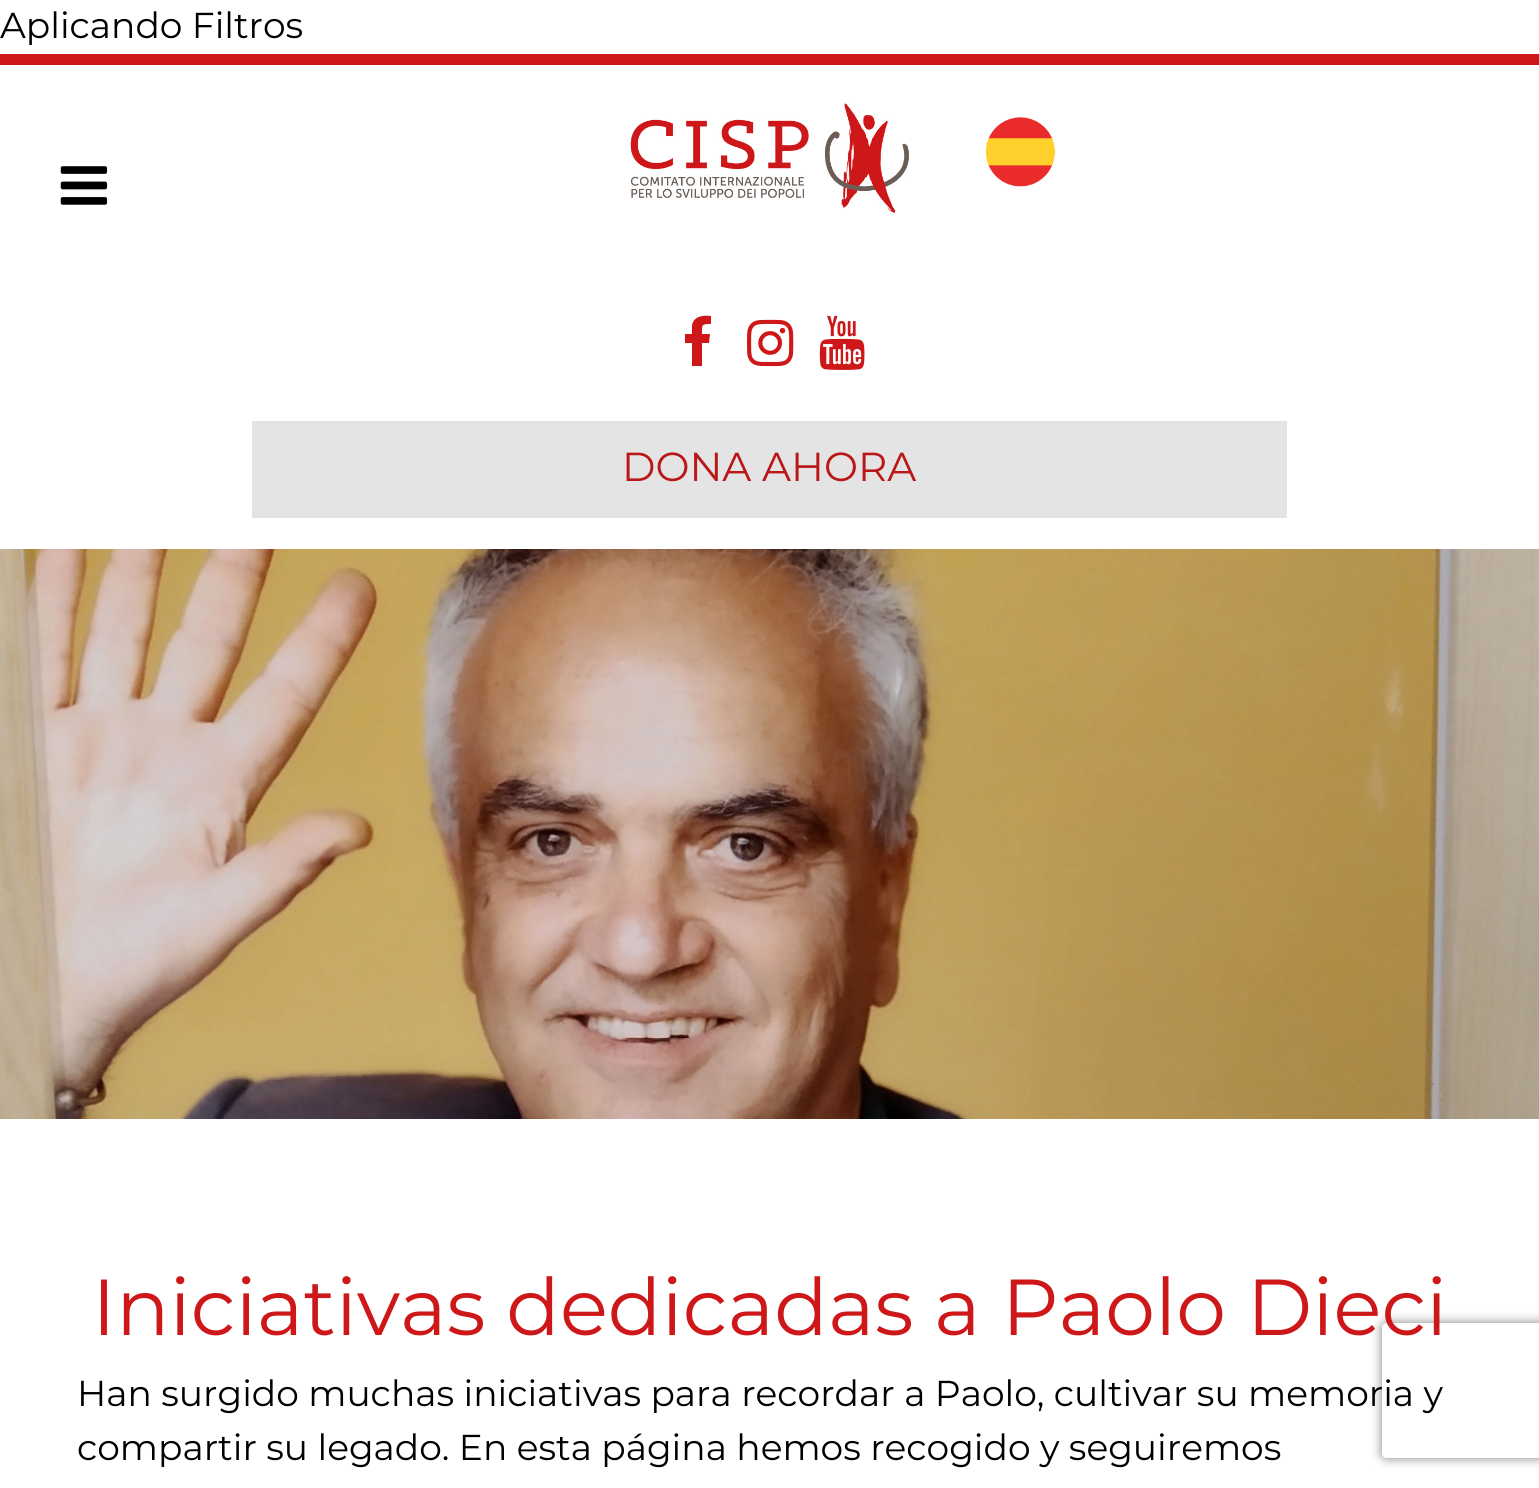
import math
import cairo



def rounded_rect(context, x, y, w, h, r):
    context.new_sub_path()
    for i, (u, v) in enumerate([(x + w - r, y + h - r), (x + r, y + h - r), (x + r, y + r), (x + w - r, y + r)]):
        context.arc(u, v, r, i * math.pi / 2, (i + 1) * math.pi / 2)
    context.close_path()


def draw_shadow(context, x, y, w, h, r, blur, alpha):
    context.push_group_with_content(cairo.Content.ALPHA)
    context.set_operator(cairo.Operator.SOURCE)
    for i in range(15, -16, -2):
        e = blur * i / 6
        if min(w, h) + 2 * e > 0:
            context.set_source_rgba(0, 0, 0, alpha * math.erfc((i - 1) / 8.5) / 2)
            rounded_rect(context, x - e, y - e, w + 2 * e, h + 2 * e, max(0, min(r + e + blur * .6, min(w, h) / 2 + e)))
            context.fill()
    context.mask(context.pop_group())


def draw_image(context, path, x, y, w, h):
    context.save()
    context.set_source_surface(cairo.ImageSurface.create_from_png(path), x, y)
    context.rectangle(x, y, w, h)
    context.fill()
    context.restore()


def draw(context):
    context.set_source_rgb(1, 1, 1)
    context.paint()
    context.set_source_rgb(205 / 255, 23 / 255, 25 / 255)
    context.rectangle(0, 54, 1539, 11)
    context.fill()
    draw_image(context, "images/1.png", 60, 166, 48, 39)
    draw_image(context, "images/2.png", 629, 103, 280, 112)
    draw_image(context, "images/3.png", 986, 117, 69, 70)
    context.new_path()
    context.move_to(711, 316)
    context.line_to(711, 324)
    context.curve_to(701, 324, 702, 325, 702, 334)
    context.line_to(710, 334)
    context.line_to(709, 343)
    context.line_to(702, 343)
    context.line_to(702, 366)
    context.line_to(692, 366)
    context.line_to(692, 343)
    context.line_to(685, 343)
    context.line_to(685, 334)
    context.line_to(692, 334)
    context.line_to(692, 325)
    context.curve_to(694, 316, 703, 315, 711, 316)
    context.close_path()
    context.fill()
    draw_image(context, "images/4.png", 747, 319, 47, 48)
    draw_image(context, "images/5.png", 819, 315, 46, 55)
    context.set_source_rgb(228 / 255, 228 / 255, 228 / 255)
    context.rectangle(252, 421, 1035, 97)
    context.fill()
    draw_image(context, "images/6.png", 0, 549, 1539, 570)
    context.save()
    context.set_fill_rule(cairo.FillRule.EVEN_ODD)
    context.new_path()
    context.move_to(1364, 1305)
    context.line_to(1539, 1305)
    context.line_to(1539, 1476)
    context.line_to(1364, 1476)
    context.close_path()
    context.move_to(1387, 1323)
    context.line_to(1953, 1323)
    context.curve_to(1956, 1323, 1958, 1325, 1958, 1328)
    context.line_to(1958, 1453)
    context.curve_to(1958, 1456, 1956, 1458, 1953, 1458)
    context.line_to(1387, 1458)
    context.curve_to(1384, 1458, 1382, 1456, 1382, 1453)
    context.line_to(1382, 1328)
    context.curve_to(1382, 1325, 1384, 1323, 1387, 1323)
    context.close_path()
    context.clip()
    context.set_source_rgb(128 / 255, 128 / 255, 128 / 255)
    draw_shadow(context, 1382, 1323, 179, 135, 5, 5.5, 1)
    context.restore()
    context.select_font_face("Montserrat")
    context.set_font_size(36)
    context.set_source_rgb(0, 0, 0)
    context.move_to(0, 38)
    context.show_text("Aplicando Filtros")
    context.set_font_size(40.5)
    context.set_source_rgb(186 / 255, 23 / 255, 25 / 255)
    context.move_to(622, 481)
    context.show_text("DONA AHORA")
    context.set_font_size(79.25)
    context.set_source_rgb(205 / 255, 23 / 255, 25 / 255)
    context.move_to(92, 1335)
    context.show_text("Iniciativas dedicadas a Paolo Dieci")
    context.set_font_size(36)
    context.set_source_rgb(0, 0, 0)
    context.move_to(77, 1406)
    context.show_text("Han surgido muchas iniciativas para recordar a Paolo, cultivar su memoria y")
    context.move_to(77, 1460)
    context.show_text("compartir su legado. En esta página hemos recogido y seguiremos")


surface = cairo.ImageSurface(cairo.Format.RGB24, 1539, 1488)
context = cairo.Context(surface)
options = cairo.FontOptions()
options.set_hint_metrics(cairo.HintMetrics.OFF)
options.set_hint_style(cairo.HintStyle.NONE)
context.set_font_options(options)
context.set_miter_limit(4)
draw(context)
surface.write_to_png("out.png")
